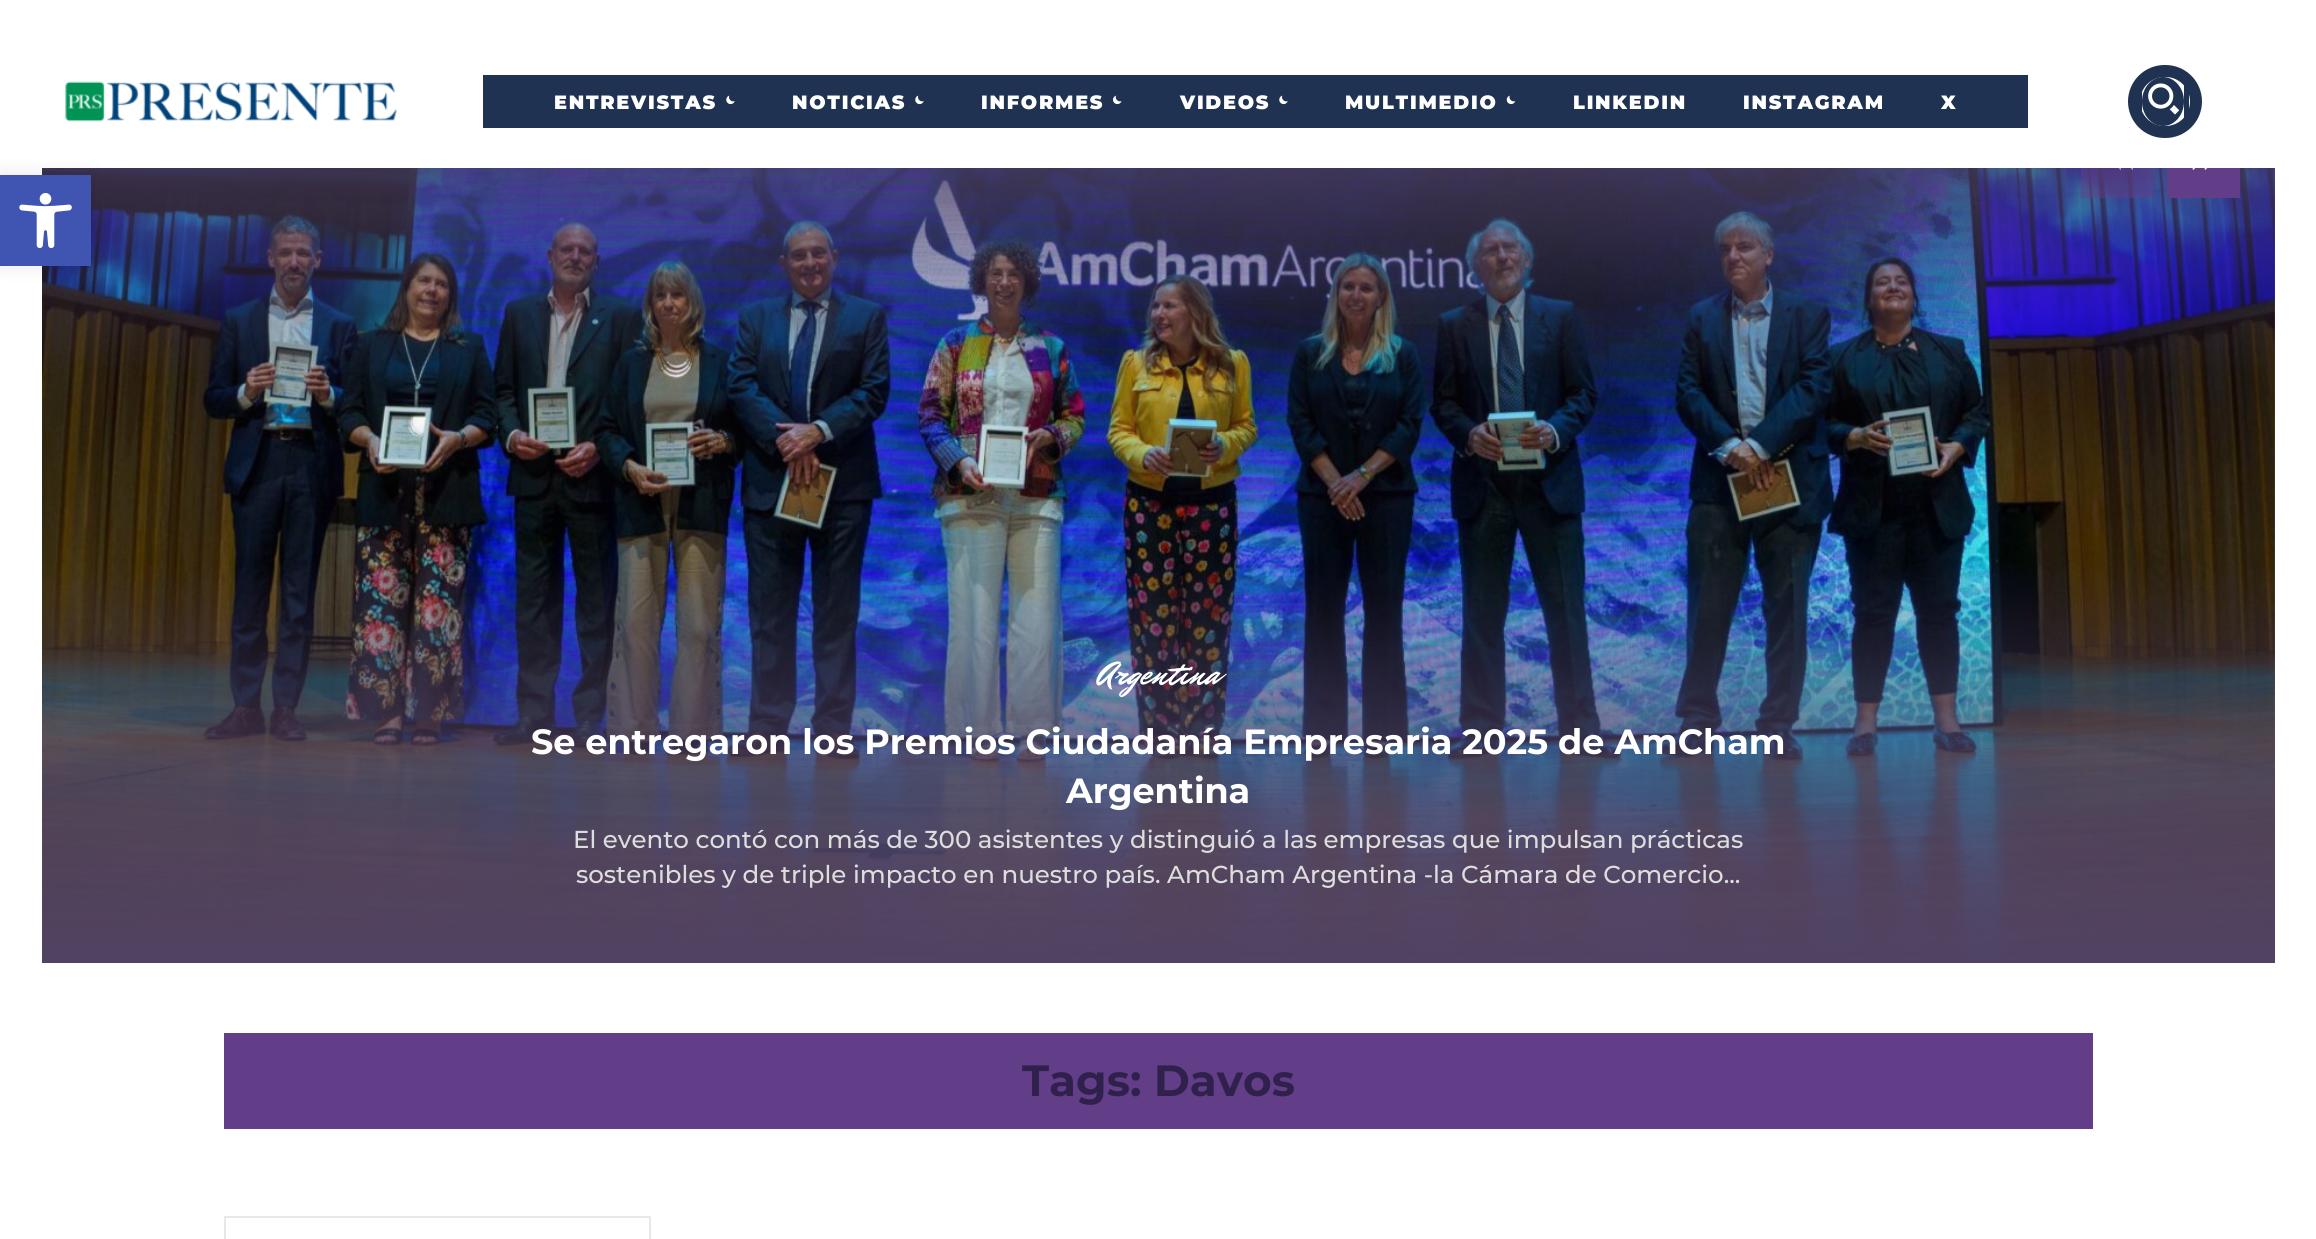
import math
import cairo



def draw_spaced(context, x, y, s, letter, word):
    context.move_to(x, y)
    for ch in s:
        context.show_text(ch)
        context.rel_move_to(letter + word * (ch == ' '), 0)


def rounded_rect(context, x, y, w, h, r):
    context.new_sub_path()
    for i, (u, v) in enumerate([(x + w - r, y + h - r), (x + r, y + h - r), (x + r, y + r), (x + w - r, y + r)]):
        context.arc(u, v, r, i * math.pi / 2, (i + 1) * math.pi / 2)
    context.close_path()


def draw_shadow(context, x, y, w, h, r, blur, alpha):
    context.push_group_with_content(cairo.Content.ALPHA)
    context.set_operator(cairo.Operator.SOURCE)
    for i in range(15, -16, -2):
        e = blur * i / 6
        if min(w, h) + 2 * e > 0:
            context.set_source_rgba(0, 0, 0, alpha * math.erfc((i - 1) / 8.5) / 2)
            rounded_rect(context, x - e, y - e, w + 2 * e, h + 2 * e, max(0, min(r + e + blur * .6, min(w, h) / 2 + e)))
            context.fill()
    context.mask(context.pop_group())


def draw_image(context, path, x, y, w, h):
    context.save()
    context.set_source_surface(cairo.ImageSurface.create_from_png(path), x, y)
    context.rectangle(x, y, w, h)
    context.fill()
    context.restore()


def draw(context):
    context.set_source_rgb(1, 1, 1)
    context.paint()
    draw_image(context, "images/9.png", 42, 168, 2233, 791)
    gradient = cairo.LinearGradient(1159, 963, 1159, 88)
    gradient.add_color_stop_rgba(0, 80 / 255, 66 / 255, 99 / 255, 1)
    gradient.add_color_stop_rgba(0.22, 80 / 255, 66 / 255, 99 / 255, 0.74)
    gradient.add_color_stop_rgba(0.46, 80 / 255, 66 / 255, 99 / 255, 0.01)
    gradient.add_color_stop_rgba(0.67, 80 / 255, 66 / 255, 99 / 255, 0.04)
    gradient.add_color_stop_rgba(1, 80 / 255, 66 / 255, 99 / 255, 1)
    gradient.add_color_stop_rgba(1, 80 / 255, 66 / 255, 99 / 255, 0.02)
    gradient.add_color_stop_rgba(1, 80 / 255, 66 / 255, 99 / 255, 0.96)
    context.set_source(gradient)
    context.rectangle(42, 168, 2233, 795)
    context.fill()
    context.set_source_rgb(0, 0, 0)
    draw_shadow(context, 0, 175, 91, 91, 0, 9, 0.1)
    context.set_source_rgb(64 / 255, 84 / 255, 178 / 255)
    context.rectangle(0, 175, 91, 91)
    context.fill()
    draw_image(context, "images/1.png", 19, 193, 53, 56)
    draw_image(context, "images/2.png", 65, 81, 332, 41)
    context.set_source_rgb(32 / 255, 50 / 255, 81 / 255)
    context.rectangle(483, 75, 1545, 53)
    context.fill()
    draw_image(context, "images/3.png", 726, 95, 9, 10)
    draw_image(context, "images/3.png", 915, 95, 9, 10)
    draw_image(context, "images/4.png", 1113, 95, 9, 10)
    draw_image(context, "images/3.png", 1279, 95, 9, 10)
    draw_image(context, "images/5.png", 1506, 95, 10, 10)
    rounded_rect(context, 2134, 71, 62, 61, 30.5)
    context.set_line_width(12)
    context.stroke()
    context.rectangle(2184, 84, 5, 37)
    context.fill()
    context.rectangle(2140, 84, 2, 27)
    context.fill()
    context.new_path()
    context.move_to(2163, 77)
    context.curve_to(2174.5, 77, 2184, 88, 2184, 101.5)
    context.curve_to(2184, 115, 2174.5, 126, 2163, 126)
    context.curve_to(2151.5, 126, 2142, 115, 2142, 101.5)
    context.curve_to(2142, 88, 2151.5, 77, 2163, 77)
    context.close_path()
    context.fill()
    draw_image(context, "images/6.png", 2148, 83, 32, 32)
    context.set_source_rgba(98 / 255, 62 / 255, 137 / 255, 0.5)
    context.rectangle(2081, 168, 73, 30)
    context.fill()
    draw_image(context, "images/7.png", 2118, 168, 15, 2)
    context.set_source_rgb(98 / 255, 62 / 255, 137 / 255)
    context.rectangle(2167, 168, 73, 30)
    context.fill()
    draw_image(context, "images/8.png", 2192, 168, 16, 2)
    context.rectangle(224, 1033, 1869, 96)
    context.fill()
    context.rectangle(225, 1217, 425, 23)
    context.set_source_rgb(232 / 255, 232 / 255, 232 / 255)
    context.set_line_width(2)
    context.stroke()
    context.select_font_face("Montserrat Black")
    context.set_font_size(19.25)
    context.set_source_rgb(1, 1, 1)
    draw_spaced(context, 554, 109, "ENTREVISTAS", 1.75, 0)
    draw_spaced(context, 792, 109, "NOTICIAS", 1.75, 0)
    draw_spaced(context, 981, 109, "INFORMES", 1.75, 0)
    draw_spaced(context, 1180, 109, "VIDEOS", 1.75, 0)
    draw_spaced(context, 1345, 109, "MULTIMEDIO", 1.75, 0)
    draw_spaced(context, 1573, 109, "LINKEDIN", 1.75, 0)
    draw_spaced(context, 1743, 109, "INSTAGRAM", 1.75, 0)
    draw_spaced(context, 1941, 109, "X", 1.75, 0)
    context.select_font_face("Mr Dafoe")
    context.set_font_size(35)
    context.move_to(1098, 684)
    context.show_text("Argentina")
    context.select_font_face("Montserrat", cairo.FontSlant.NORMAL, cairo.FontWeight.BOLD)
    context.move_to(531, 754)
    context.show_text("Se entregaron los Premios Ciudadanía Empresaria 2025 de AmCham")
    context.move_to(1066, 803)
    context.show_text("Argentina")
    context.select_font_face("Montserrat Medium")
    context.set_font_size(24.5)
    context.set_source_rgb(221 / 255, 221 / 255, 221 / 255)
    context.move_to(573, 848)
    context.show_text("El evento contó con más de 300 asistentes y distinguió a las empresas que impulsan prácticas")
    context.move_to(576, 883)
    context.show_text("sostenibles y de triple impacto en nuestro país. AmCham Argentina -la Cámara de Comercio...")
    context.select_font_face("Montserrat", cairo.FontSlant.NORMAL, cairo.FontWeight.BOLD)
    context.set_font_size(43.75)
    context.set_source_rgb(48 / 255, 32 / 255, 76 / 255)
    context.move_to(1022, 1096)
    context.show_text("Tags: Davos")


surface = cairo.ImageSurface(cairo.Format.RGB24, 2316, 1239)
context = cairo.Context(surface)
options = cairo.FontOptions()
options.set_hint_metrics(cairo.HintMetrics.OFF)
options.set_hint_style(cairo.HintStyle.NONE)
context.set_font_options(options)
context.set_miter_limit(4)
draw(context)
surface.write_to_png("out.png")
